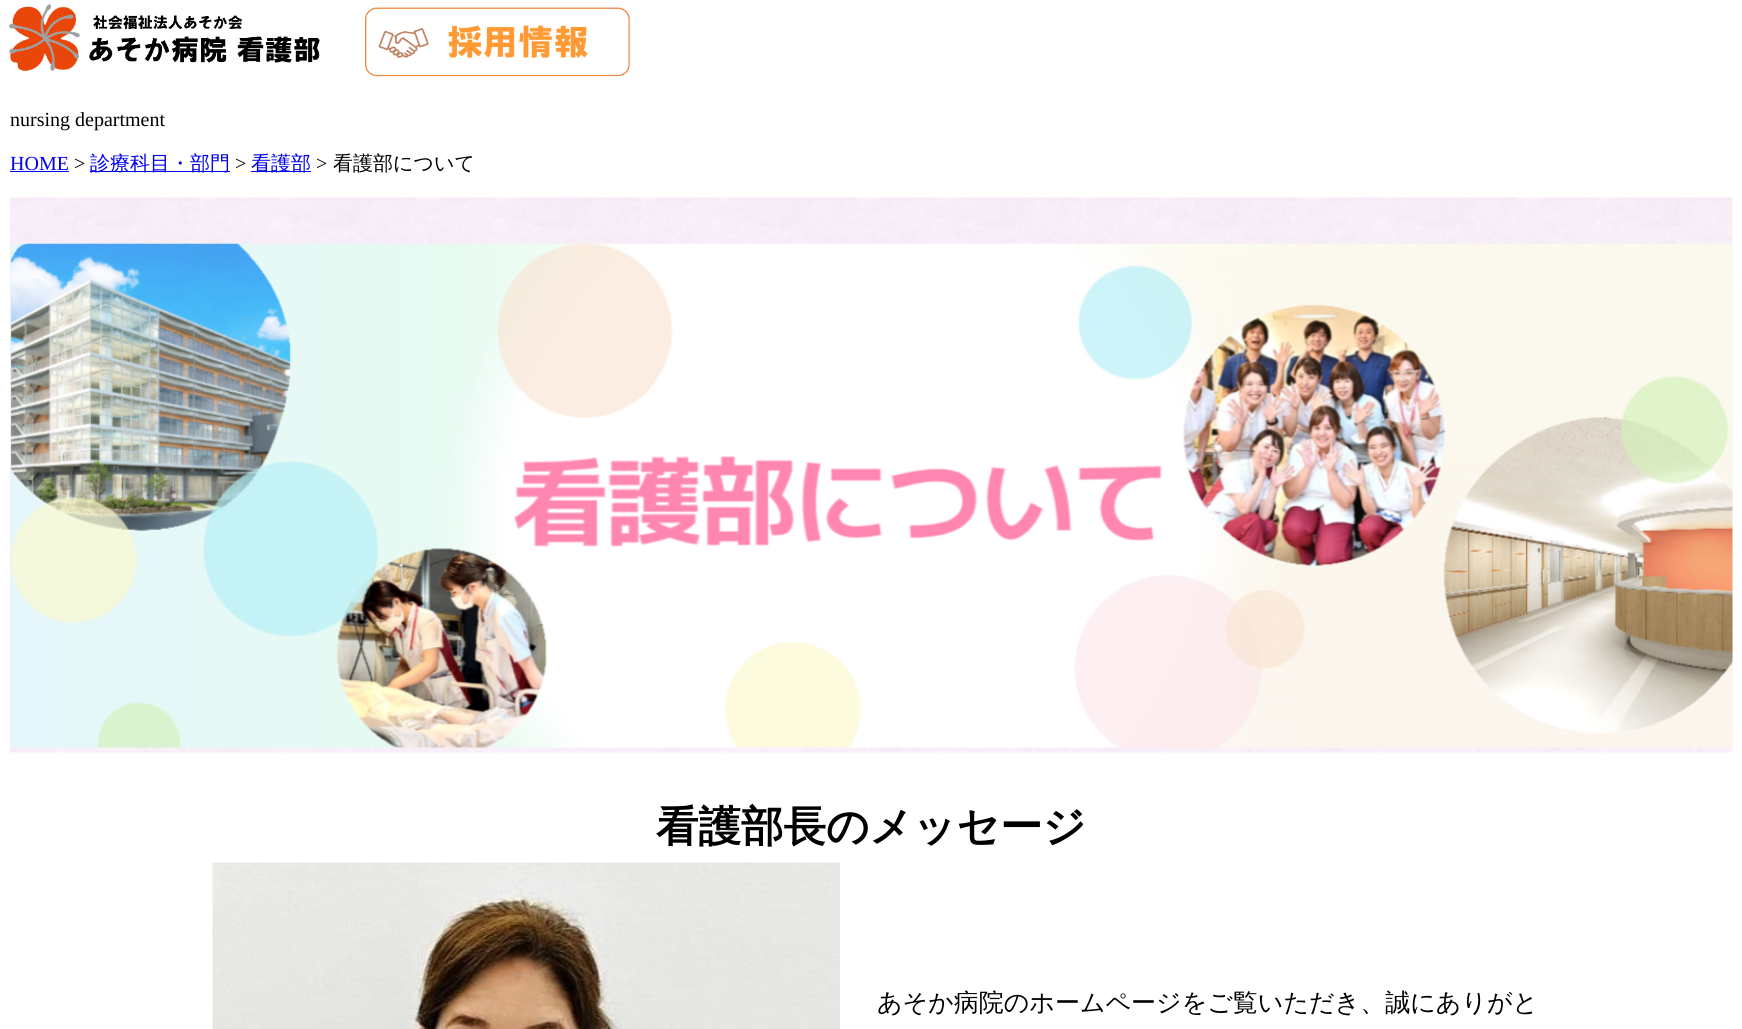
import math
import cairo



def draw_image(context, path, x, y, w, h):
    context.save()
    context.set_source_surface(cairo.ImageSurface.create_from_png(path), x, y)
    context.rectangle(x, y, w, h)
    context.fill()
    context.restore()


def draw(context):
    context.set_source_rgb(1, 1, 1)
    context.paint()
    context.set_source_rgb(0, 0, 238 / 255)
    context.rectangle(10, 171, 59, 1)
    context.fill()
    context.rectangle(90, 171, 140, 1)
    context.fill()
    context.rectangle(251, 171, 60, 1)
    context.fill()
    draw_image(context, "images/1.png", 9, 4, 311, 67)
    draw_image(context, "images/2.png", 365, 7, 265, 70)
    draw_image(context, "images/3.png", 10, 197, 1723, 556)
    draw_image(context, "images/4.png", 10, 243, 1723, 505)
    draw_image(context, "images/5.png", 212, 862, 628, 167)
    context.select_font_face("Liberation Serif")
    context.set_font_size(20)
    context.set_source_rgb(0, 0, 0)
    context.move_to(10, 126)
    context.show_text("nursing department")
    context.set_source_rgb(0, 0, 238 / 255)
    context.move_to(10, 170)
    context.show_text("HOME")
    context.set_source_rgb(0, 0, 0)
    context.move_to(74, 170)
    context.show_text(">")
    context.select_font_face("WenQuanYi Zen Hei Medium")
    context.set_source_rgb(0, 0, 238 / 255)
    context.move_to(90, 170)
    context.show_text("診療科目・部門")
    context.select_font_face("Liberation Serif")
    context.set_source_rgb(0, 0, 0)
    context.move_to(235, 170)
    context.show_text(">")
    context.select_font_face("WenQuanYi Zen Hei Medium")
    context.set_source_rgb(0, 0, 238 / 255)
    context.move_to(251, 170)
    context.show_text("看護部")
    context.select_font_face("Liberation Serif")
    context.set_source_rgb(0, 0, 0)
    context.move_to(316, 170)
    context.show_text(">")
    context.select_font_face("WenQuanYi Zen Hei Medium")
    context.move_to(333, 170)
    context.show_text("看護部について")
    context.select_font_face("WenQuanYi Zen Hei", cairo.FontSlant.NORMAL, cairo.FontWeight.BOLD)
    context.set_font_size(42.5)
    context.move_to(656, 841)
    context.show_text("看護部長のメッセージ")
    context.select_font_face("WenQuanYi Zen Hei Medium")
    context.set_font_size(25)
    context.move_to(877, 1011)
    context.show_text("あそか病院のホームページをご覧いただき、誠にありがと")


surface = cairo.ImageSurface(cairo.Format.RGB24, 1742, 1029)
context = cairo.Context(surface)
options = cairo.FontOptions()
options.set_hint_metrics(cairo.HintMetrics.OFF)
options.set_hint_style(cairo.HintStyle.NONE)
context.set_font_options(options)
context.set_miter_limit(4)
draw(context)
surface.write_to_png("out.png")
